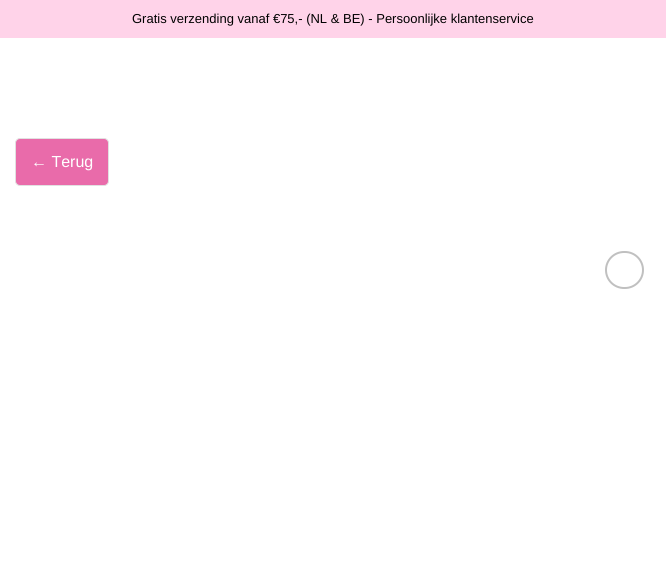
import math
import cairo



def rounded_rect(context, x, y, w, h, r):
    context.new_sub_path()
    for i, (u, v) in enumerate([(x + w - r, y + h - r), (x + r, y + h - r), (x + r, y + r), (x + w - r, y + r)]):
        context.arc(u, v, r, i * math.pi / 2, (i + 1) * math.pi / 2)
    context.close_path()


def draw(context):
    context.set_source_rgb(1, 1, 1)
    context.paint()
    context.set_source_rgb(1, 211 / 255, 233 / 255)
    context.rectangle(0, 0, 666, 38)
    context.fill()
    context.set_source_rgb(233 / 255, 107 / 255, 170 / 255)
    rounded_rect(context, 15.5, 138.5, 93, 47, 4.5)
    context.fill_preserve()
    context.set_source_rgb(225 / 255, 225 / 255, 225 / 255)
    context.set_line_width(1)
    context.stroke()
    rounded_rect(context, 606, 252, 37, 36, 18)
    context.set_source_rgb(192 / 255, 192 / 255, 192 / 255)
    context.set_line_width(2)
    context.stroke()
    context.select_font_face("Liberation Sans")
    context.set_font_size(13)
    context.set_source_rgb(0, 0, 0)
    context.move_to(132, 23)
    context.show_text("Gratis verzending vanaf €75,- (NL & BE) - Persoonlijke klantenservice")
    context.set_font_size(16)
    context.set_source_rgb(1, 1, 1)
    context.move_to(31, 167)
    context.show_text("← Terug")


surface = cairo.ImageSurface(cairo.Format.RGB24, 666, 580)
context = cairo.Context(surface)
options = cairo.FontOptions()
options.set_hint_metrics(cairo.HintMetrics.OFF)
options.set_hint_style(cairo.HintStyle.NONE)
context.set_font_options(options)
context.set_miter_limit(4)
draw(context)
surface.write_to_png("out.png")
